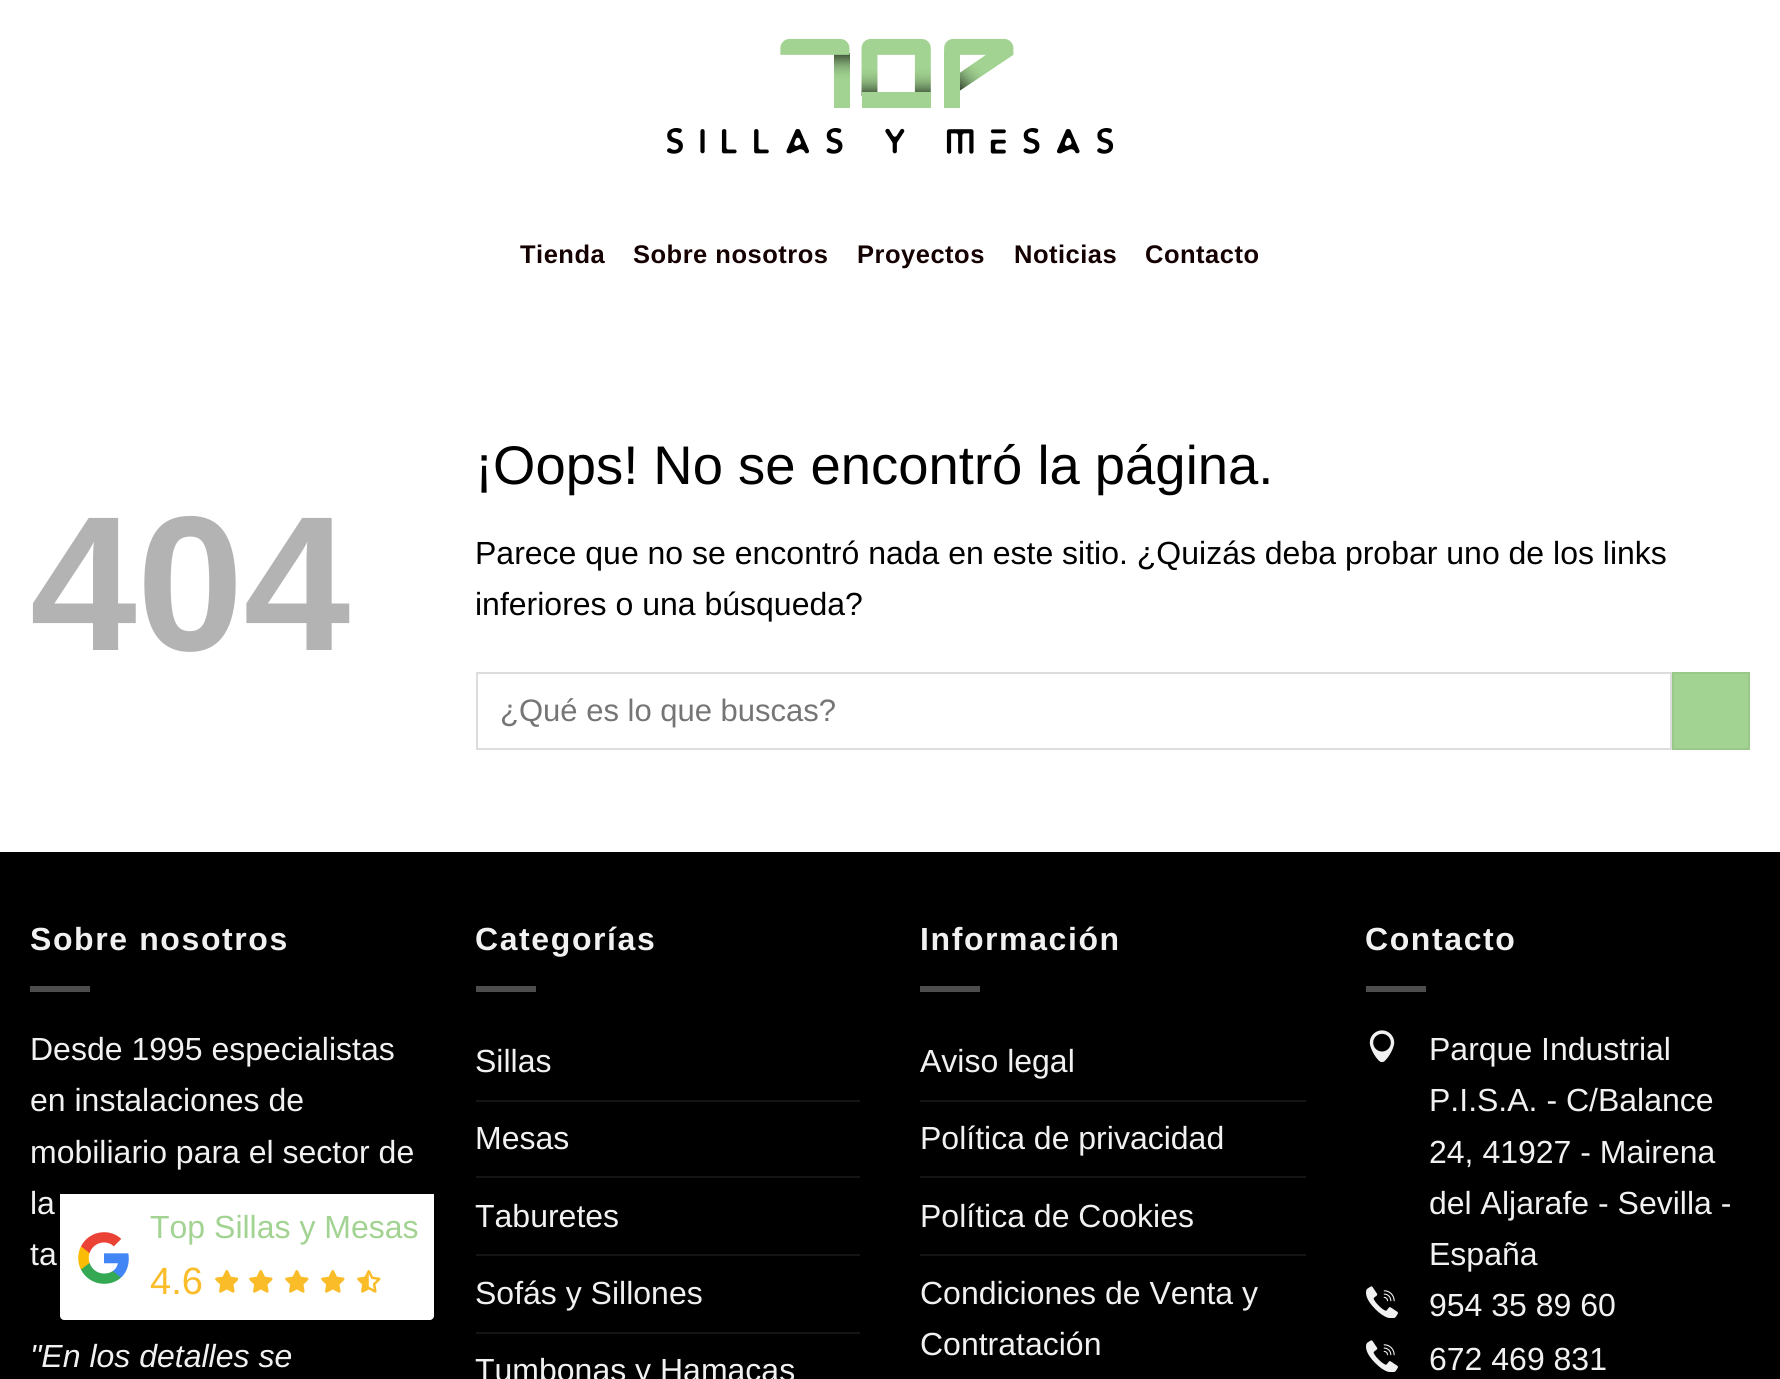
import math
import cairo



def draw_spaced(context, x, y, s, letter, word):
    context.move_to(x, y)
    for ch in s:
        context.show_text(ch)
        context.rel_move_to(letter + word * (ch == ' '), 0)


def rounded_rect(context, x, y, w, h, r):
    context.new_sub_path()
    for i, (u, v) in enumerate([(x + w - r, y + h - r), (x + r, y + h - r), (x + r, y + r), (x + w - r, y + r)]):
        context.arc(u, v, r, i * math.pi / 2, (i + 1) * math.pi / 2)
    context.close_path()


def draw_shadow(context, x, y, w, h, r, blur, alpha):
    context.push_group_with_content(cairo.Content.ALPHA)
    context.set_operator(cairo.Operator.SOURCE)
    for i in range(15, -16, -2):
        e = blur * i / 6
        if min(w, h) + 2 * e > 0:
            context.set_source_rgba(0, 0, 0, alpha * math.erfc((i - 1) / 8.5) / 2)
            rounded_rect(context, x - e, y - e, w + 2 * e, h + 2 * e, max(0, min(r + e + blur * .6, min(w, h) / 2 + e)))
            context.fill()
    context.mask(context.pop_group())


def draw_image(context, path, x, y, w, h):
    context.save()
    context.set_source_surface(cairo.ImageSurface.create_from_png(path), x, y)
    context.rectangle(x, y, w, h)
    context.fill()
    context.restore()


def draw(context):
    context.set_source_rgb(1, 1, 1)
    context.paint()
    draw_image(context, "images/1.png", 667, 38, 447, 116)
    context.rectangle(477, 673, 1194, 76)
    context.set_source_rgb(221 / 255, 221 / 255, 221 / 255)
    context.stroke()
    context.set_source_rgb(162 / 255, 211 / 255, 146 / 255)
    context.rectangle(1673, 673, 76, 76)
    context.fill_preserve()
    context.set_source_rgb(154 / 255, 200 / 255, 139 / 255)
    context.stroke()
    context.set_source_rgb(0, 0, 0)
    context.rectangle(0, 852, 1780, 527)
    context.fill()
    context.set_source_rgb(77 / 255, 77 / 255, 77 / 255)
    context.rectangle(30, 986, 60, 6)
    context.fill()
    context.rectangle(476, 986, 60, 6)
    context.fill()
    context.set_source_rgb(20 / 255, 20 / 255, 20 / 255)
    context.rectangle(476, 1100, 384, 2)
    context.fill()
    context.rectangle(476, 1176, 384, 2)
    context.fill()
    context.rectangle(476, 1254, 384, 2)
    context.fill()
    context.rectangle(476, 1332, 384, 2)
    context.fill()
    context.set_source_rgb(77 / 255, 77 / 255, 77 / 255)
    context.rectangle(920, 986, 60, 6)
    context.fill()
    context.set_source_rgb(20 / 255, 20 / 255, 20 / 255)
    context.rectangle(920, 1100, 386, 2)
    context.fill()
    context.rectangle(920, 1176, 386, 2)
    context.fill()
    context.rectangle(920, 1254, 386, 2)
    context.fill()
    context.set_source_rgb(77 / 255, 77 / 255, 77 / 255)
    context.rectangle(1366, 986, 60, 6)
    context.fill()
    draw_image(context, "images/2.png", 1369, 1030, 26, 32)
    draw_image(context, "images/3.png", 1366, 1286, 32, 32)
    draw_image(context, "images/3.png", 1366, 1340, 32, 32)
    context.set_source_rgb(0, 0, 0)
    draw_shadow(context, 60, 1186, 374, 138, 4, 5, 0.26)
    context.set_source_rgb(1, 1, 1)
    context.new_path()
    context.move_to(60, 1194)
    context.line_to(434, 1194)
    context.line_to(434, 1316)
    context.curve_to(434, 1318, 432, 1320, 430, 1320)
    context.line_to(64, 1320)
    context.curve_to(62, 1320, 60, 1318, 60, 1316)
    context.close_path()
    context.fill()
    draw_image(context, "images/4.png", 78, 1232, 51, 52)
    draw_image(context, "images/5.png", 215, 1270, 23, 23)
    draw_image(context, "images/6.png", 249, 1270, 24, 23)
    draw_image(context, "images/6.png", 285, 1270, 24, 23)
    draw_image(context, "images/6.png", 321, 1270, 24, 23)
    draw_image(context, "images/7.png", 357, 1270, 24, 23)
    context.select_font_face("Liberation Sans", cairo.FontSlant.NORMAL, cairo.FontWeight.BOLD)
    context.set_font_size(25.5)
    context.set_source_rgb(20 / 255, 0, 0)
    draw_spaced(context, 520, 263, "Tienda", 0.5, 0)
    draw_spaced(context, 633, 263, "Sobre nosotros", 0.5, 0)
    draw_spaced(context, 857, 263, "Proyectos", 0.5, 0)
    draw_spaced(context, 1014, 263, "Noticias", 0.5, 0)
    draw_spaced(context, 1145, 263, "Contacto", 0.5, 0)
    context.set_font_size(192)
    context.set_source_rgb(179 / 255, 179 / 255, 179 / 255)
    context.move_to(30, 650)
    context.show_text("404")
    context.select_font_face("Liberation Sans")
    context.set_font_size(54.4)
    context.set_source_rgb(0, 0, 0)
    context.move_to(475, 484)
    context.show_text("¡Oops! No se encontró la página.")
    context.set_font_size(32)
    context.move_to(475, 564)
    context.show_text("Parece que no se encontró nada en este sitio. ¿Quizás deba probar uno de los links")
    context.move_to(475, 615)
    context.show_text("inferiores o una búsqueda?")
    context.set_font_size(31)
    context.set_source_rgb(117 / 255, 117 / 255, 117 / 255)
    context.move_to(500, 721)
    context.show_text("¿Qué es lo que buscas?")
    context.select_font_face("Liberation Sans", cairo.FontSlant.NORMAL, cairo.FontWeight.BOLD)
    context.set_font_size(32)
    context.set_source_rgb(241 / 255, 241 / 255, 241 / 255)
    draw_spaced(context, 30, 950, "Sobre nosotros", 1.6, 0)
    context.select_font_face("Liberation Sans")
    context.move_to(30, 1060)
    context.show_text("Desde 1995 especialistas")
    context.move_to(30, 1111)
    context.show_text("en instalaciones de")
    context.move_to(30, 1163)
    context.show_text("mobiliario para el sector de")
    context.move_to(30, 1214)
    context.show_text("la")
    context.move_to(30, 1265)
    context.show_text("ta")
    context.select_font_face("Liberation Sans", cairo.FontSlant.ITALIC)
    context.move_to(30, 1367)
    context.show_text("\"En los detalles se")
    context.select_font_face("Liberation Sans", cairo.FontSlant.NORMAL, cairo.FontWeight.BOLD)
    draw_spaced(context, 475, 950, "Categorías", 1.6, 0)
    context.select_font_face("Liberation Sans")
    context.move_to(475, 1072)
    context.show_text("Sillas")
    context.move_to(475, 1149)
    context.show_text("Mesas")
    context.move_to(475, 1227)
    context.show_text("Taburetes")
    context.move_to(475, 1304)
    context.show_text("Sofás y Sillones")
    context.move_to(475, 1381)
    context.show_text("Tumbonas y Hamacas")
    context.select_font_face("Liberation Sans", cairo.FontSlant.NORMAL, cairo.FontWeight.BOLD)
    draw_spaced(context, 920, 950, "Información", 1.6, 0)
    context.select_font_face("Liberation Sans")
    context.move_to(920, 1072)
    context.show_text("Aviso legal")
    context.move_to(920, 1149)
    context.show_text("Política de privacidad")
    context.move_to(920, 1227)
    context.show_text("Política de Cookies")
    context.move_to(920, 1304)
    context.show_text("Condiciones de Venta y")
    context.move_to(920, 1355)
    context.show_text("Contratación")
    context.select_font_face("Liberation Sans", cairo.FontSlant.NORMAL, cairo.FontWeight.BOLD)
    draw_spaced(context, 1365, 950, "Contacto", 1.6, 0)
    context.select_font_face("Liberation Sans")
    context.move_to(1429, 1060)
    context.show_text("Parque Industrial")
    context.move_to(1429, 1111)
    context.show_text("P.I.S.A. - C/Balance")
    context.move_to(1429, 1163)
    context.show_text("24, 41927 - Mairena")
    context.move_to(1429, 1214)
    context.show_text("del Aljarafe - Sevilla -")
    context.move_to(1429, 1265)
    context.show_text("España")
    context.move_to(1429, 1316)
    context.show_text("954 35 89 60")
    context.move_to(1429, 1370)
    context.show_text("672 469 831")
    context.set_source_rgb(163 / 255, 211 / 255, 146 / 255)
    context.move_to(150, 1238)
    context.show_text("Top Sillas y Mesas")
    context.set_font_size(38)
    context.set_source_rgb(250 / 255, 188 / 255, 40 / 255)
    context.move_to(150, 1294)
    context.show_text("4.6")


surface = cairo.ImageSurface(cairo.Format.RGB24, 1780, 1379)
context = cairo.Context(surface)
options = cairo.FontOptions()
options.set_hint_metrics(cairo.HintMetrics.OFF)
options.set_hint_style(cairo.HintStyle.NONE)
context.set_font_options(options)
context.set_miter_limit(4)
draw(context)
surface.write_to_png("out.png")
